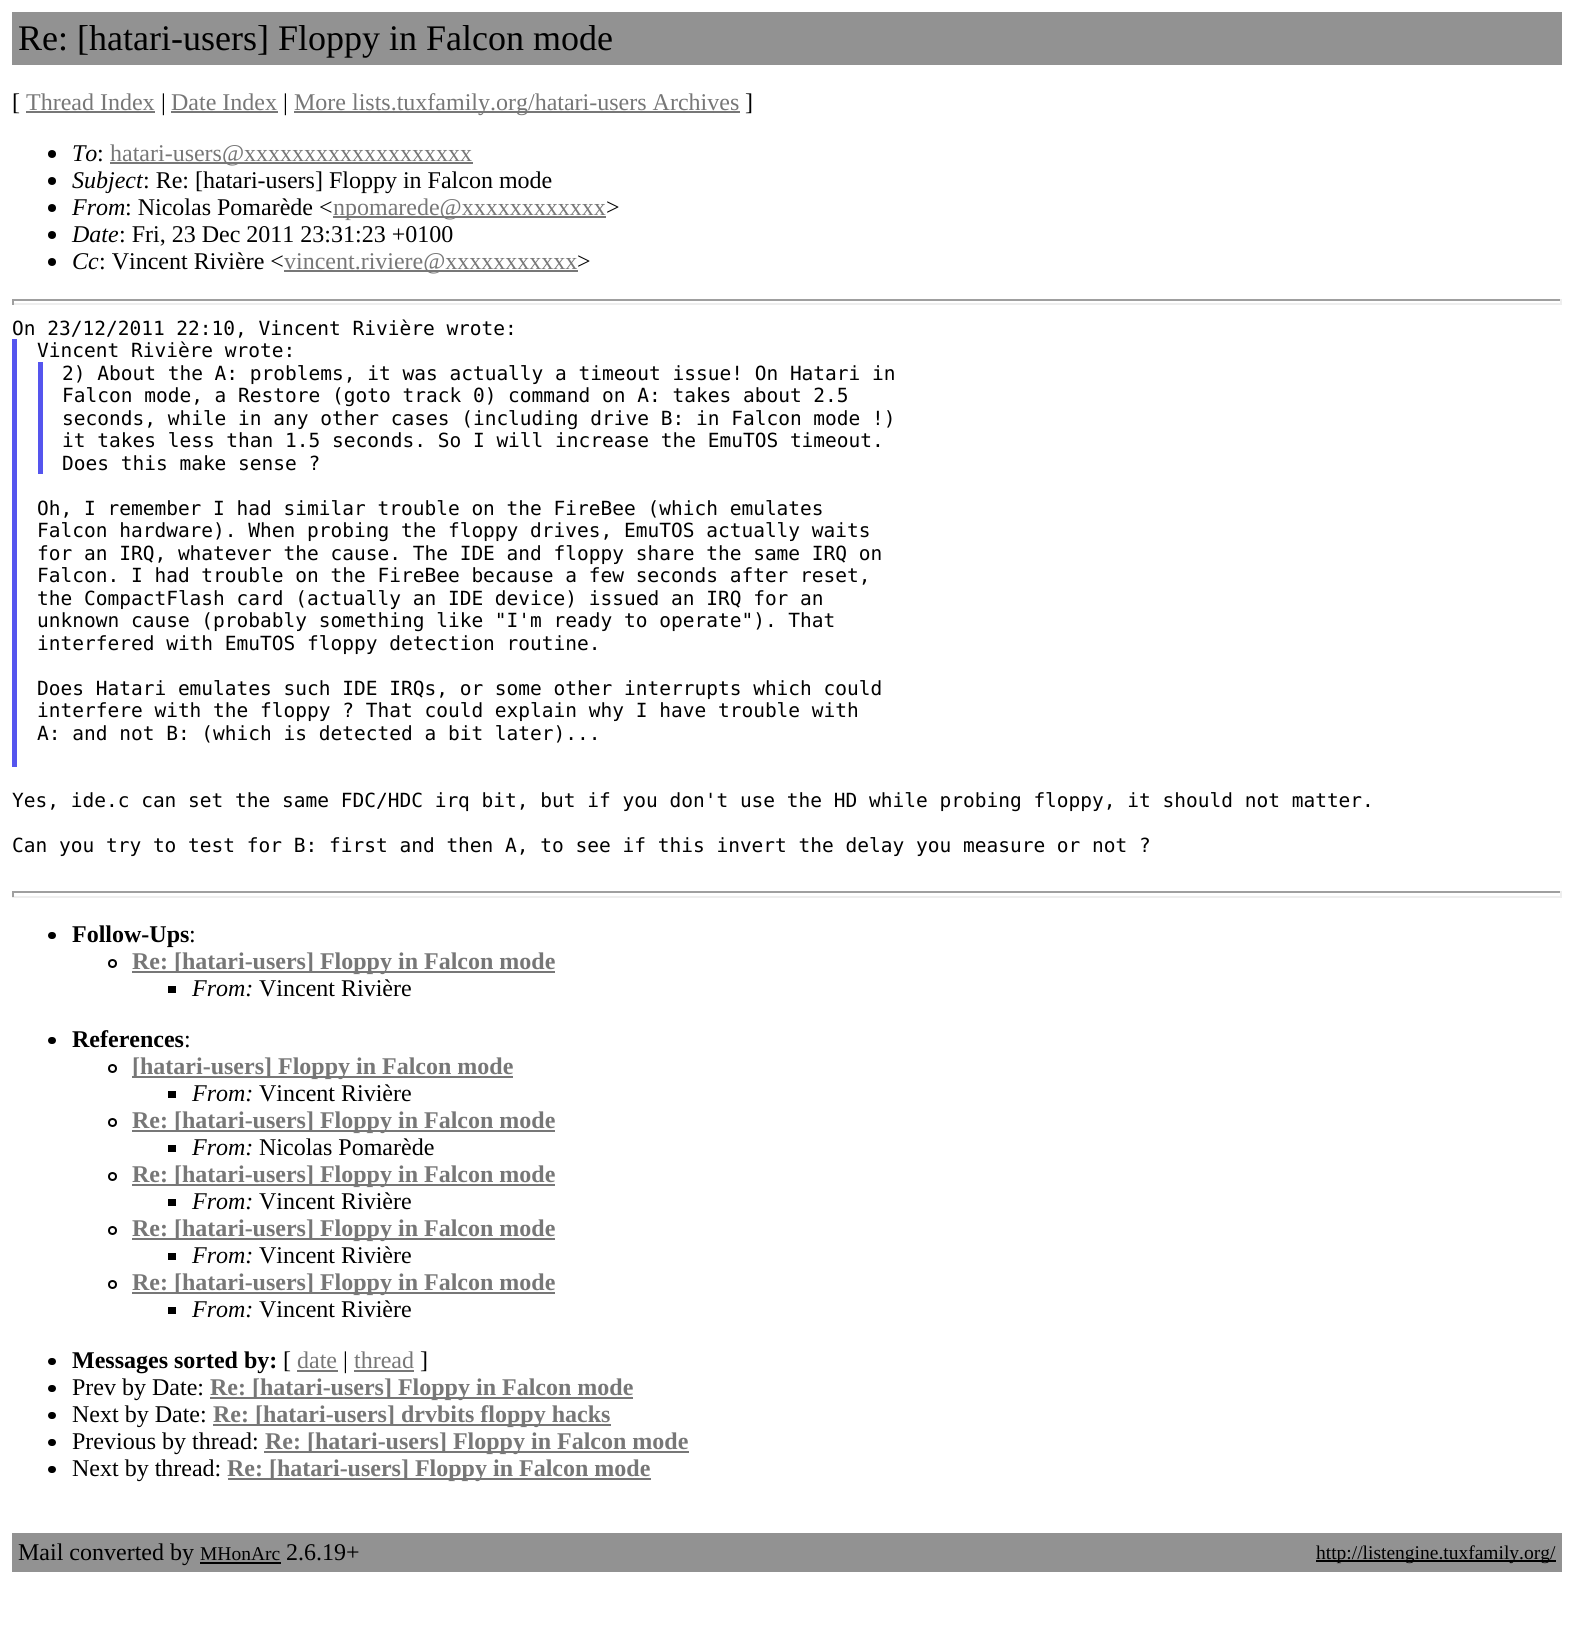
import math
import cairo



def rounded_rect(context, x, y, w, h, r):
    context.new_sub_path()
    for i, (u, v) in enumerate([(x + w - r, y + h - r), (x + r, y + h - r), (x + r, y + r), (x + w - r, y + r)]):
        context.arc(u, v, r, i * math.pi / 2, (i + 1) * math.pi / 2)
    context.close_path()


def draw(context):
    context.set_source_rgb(1, 1, 1)
    context.paint()
    context.set_source_rgb(146 / 255, 146 / 255, 146 / 255)
    context.rectangle(12, 12, 1550, 53)
    context.fill()
    context.set_source_rgb(119 / 255, 119 / 255, 119 / 255)
    context.rectangle(26, 111, 129, 2)
    context.fill()
    context.rectangle(171, 111, 107, 2)
    context.fill()
    context.rectangle(294, 111, 446, 2)
    context.fill()
    context.set_source_rgb(0, 0, 0)
    context.arc(52, 154, 4, 0, 2 * math.pi)
    context.fill()
    context.set_source_rgb(119 / 255, 119 / 255, 119 / 255)
    context.rectangle(110, 162, 363, 2)
    context.fill()
    context.set_source_rgb(0, 0, 0)
    context.arc(52, 181, 4, 0, 2 * math.pi)
    context.fill()
    context.arc(52, 208, 4, 0, 2 * math.pi)
    context.fill()
    context.set_source_rgb(119 / 255, 119 / 255, 119 / 255)
    context.rectangle(333, 216, 273, 2)
    context.fill()
    context.set_source_rgb(0, 0, 0)
    context.arc(52, 235, 4, 0, 2 * math.pi)
    context.fill()
    context.arc(52, 262, 4, 0, 2 * math.pi)
    context.fill()
    context.set_source_rgb(119 / 255, 119 / 255, 119 / 255)
    context.rectangle(284, 270, 294, 2)
    context.fill()
    context.set_source_rgb(159 / 255, 159 / 255, 159 / 255)
    context.rectangle(12, 299, 1550, 2)
    context.fill()
    context.set_source_rgb(238 / 255, 238 / 255, 238 / 255)
    context.rectangle(1560, 299, 2, 6)
    context.fill()
    context.rectangle(12, 303, 1550, 2)
    context.fill()
    context.set_source_rgb(159 / 255, 159 / 255, 159 / 255)
    context.rectangle(12, 299, 2, 6)
    context.fill()
    context.set_source_rgb(85 / 255, 85 / 255, 238 / 255)
    context.rectangle(12, 339, 5, 428)
    context.fill()
    context.rectangle(38, 362, 5, 112)
    context.fill()
    context.set_source_rgb(159 / 255, 159 / 255, 159 / 255)
    context.rectangle(12, 891, 1550, 2)
    context.fill()
    context.set_source_rgb(238 / 255, 238 / 255, 238 / 255)
    context.rectangle(1560, 891, 2, 6)
    context.fill()
    context.rectangle(12, 896, 1550, 2)
    context.fill()
    context.set_source_rgb(159 / 255, 159 / 255, 159 / 255)
    context.rectangle(12, 891, 2, 6)
    context.fill()
    context.set_source_rgb(0, 0, 0)
    rounded_rect(context, 48, 932, 8, 7, 3.5)
    context.fill()
    context.arc(112.5, 963.5, 3.5, 0, 2 * math.pi)
    context.stroke()
    context.set_source_rgb(119 / 255, 119 / 255, 119 / 255)
    context.rectangle(132, 971, 423, 2)
    context.fill()
    context.set_source_rgb(0, 0, 0)
    context.rectangle(168, 986, 8, 7)
    context.fill()
    rounded_rect(context, 48, 1037, 8, 7, 3.5)
    context.fill()
    context.arc(112.5, 1068.5, 3.5, 0, 2 * math.pi)
    context.stroke()
    context.set_source_rgb(119 / 255, 119 / 255, 119 / 255)
    context.rectangle(132, 1076, 381, 2)
    context.fill()
    context.set_source_rgb(0, 0, 0)
    context.rectangle(168, 1091, 8, 7)
    context.fill()
    context.arc(112.5, 1122.5, 3.5, 0, 2 * math.pi)
    context.stroke()
    context.set_source_rgb(119 / 255, 119 / 255, 119 / 255)
    context.rectangle(132, 1130, 423, 2)
    context.fill()
    context.set_source_rgb(0, 0, 0)
    context.rectangle(168, 1145, 8, 7)
    context.fill()
    context.arc(112.5, 1176.5, 3.5, 0, 2 * math.pi)
    context.stroke()
    context.set_source_rgb(119 / 255, 119 / 255, 119 / 255)
    context.rectangle(132, 1184, 423, 2)
    context.fill()
    context.set_source_rgb(0, 0, 0)
    context.rectangle(168, 1199, 8, 7)
    context.fill()
    context.arc(112.5, 1230.5, 3.5, 0, 2 * math.pi)
    context.stroke()
    context.set_source_rgb(119 / 255, 119 / 255, 119 / 255)
    context.rectangle(132, 1238, 423, 2)
    context.fill()
    context.set_source_rgb(0, 0, 0)
    context.rectangle(168, 1253, 8, 7)
    context.fill()
    context.arc(112.5, 1284.5, 3.5, 0, 2 * math.pi)
    context.stroke()
    context.set_source_rgb(119 / 255, 119 / 255, 119 / 255)
    context.rectangle(132, 1292, 423, 2)
    context.fill()
    context.set_source_rgb(0, 0, 0)
    context.rectangle(168, 1307, 8, 7)
    context.fill()
    rounded_rect(context, 48, 1358, 8, 7, 3.5)
    context.fill()
    context.set_source_rgb(119 / 255, 119 / 255, 119 / 255)
    context.rectangle(297, 1370, 41, 2)
    context.fill()
    context.rectangle(354, 1370, 60, 2)
    context.fill()
    context.set_source_rgb(0, 0, 0)
    rounded_rect(context, 48, 1385, 8, 7, 3.5)
    context.fill()
    context.set_source_rgb(119 / 255, 119 / 255, 119 / 255)
    context.rectangle(210, 1397, 423, 2)
    context.fill()
    context.set_source_rgb(0, 0, 0)
    rounded_rect(context, 48, 1412, 8, 7, 3.5)
    context.fill()
    context.set_source_rgb(119 / 255, 119 / 255, 119 / 255)
    context.rectangle(213, 1424, 398, 2)
    context.fill()
    context.set_source_rgb(0, 0, 0)
    rounded_rect(context, 48, 1439, 8, 7, 3.5)
    context.fill()
    context.set_source_rgb(119 / 255, 119 / 255, 119 / 255)
    context.rectangle(264, 1451, 425, 2)
    context.fill()
    context.set_source_rgb(0, 0, 0)
    rounded_rect(context, 48, 1466, 8, 7, 3.5)
    context.fill()
    context.set_source_rgb(119 / 255, 119 / 255, 119 / 255)
    context.rectangle(228, 1478, 423, 2)
    context.fill()
    context.set_source_rgb(146 / 255, 146 / 255, 146 / 255)
    context.rectangle(12, 1533, 1550, 39)
    context.fill()
    context.set_source_rgb(0, 0, 0)
    context.rectangle(200, 1562, 81, 2)
    context.fill()
    context.rectangle(1316, 1560, 240, 2)
    context.fill()
    context.select_font_face("Liberation Serif")
    context.set_font_size(36)
    context.move_to(18, 50)
    context.show_text("Re: [hatari-users] Floppy in Falcon mode")
    context.set_font_size(24)
    context.move_to(12, 110)
    context.show_text("[")
    context.set_source_rgb(119 / 255, 119 / 255, 119 / 255)
    context.move_to(26, 110)
    context.show_text("Thread Index")
    context.set_source_rgb(0, 0, 0)
    context.move_to(161, 110)
    context.show_text("|")
    context.set_source_rgb(119 / 255, 119 / 255, 119 / 255)
    context.move_to(171, 110)
    context.show_text("Date Index")
    context.set_source_rgb(0, 0, 0)
    context.move_to(283, 110)
    context.show_text("|")
    context.set_source_rgb(119 / 255, 119 / 255, 119 / 255)
    context.move_to(294, 110)
    context.show_text("More lists.tuxfamily.org/hatari-users Archives")
    context.set_source_rgb(0, 0, 0)
    context.move_to(745, 110)
    context.show_text("]")
    context.select_font_face("Liberation Serif", cairo.FontSlant.ITALIC)
    context.move_to(72, 161)
    context.show_text("To")
    context.select_font_face("Liberation Serif")
    context.move_to(97, 161)
    context.show_text(":")
    context.set_source_rgb(119 / 255, 119 / 255, 119 / 255)
    context.move_to(110, 161)
    context.show_text("hatari-users@xxxxxxxxxxxxxxxxxxx")
    context.select_font_face("Liberation Serif", cairo.FontSlant.ITALIC)
    context.set_source_rgb(0, 0, 0)
    context.move_to(72, 188)
    context.show_text("Subject")
    context.select_font_face("Liberation Serif")
    context.move_to(143, 188)
    context.show_text(": Re: [hatari-users] Floppy in Falcon mode")
    context.select_font_face("Liberation Serif", cairo.FontSlant.ITALIC)
    context.move_to(72, 215)
    context.show_text("From")
    context.select_font_face("Liberation Serif")
    context.move_to(125, 215)
    context.show_text(": Nicolas Pomarède <")
    context.set_source_rgb(119 / 255, 119 / 255, 119 / 255)
    context.move_to(333, 215)
    context.show_text("npomarede@xxxxxxxxxxxx")
    context.set_source_rgb(0, 0, 0)
    context.move_to(606, 215)
    context.show_text(">")
    context.select_font_face("Liberation Serif", cairo.FontSlant.ITALIC)
    context.move_to(72, 242)
    context.show_text("Date")
    context.select_font_face("Liberation Serif")
    context.move_to(119, 242)
    context.show_text(": Fri, 23 Dec 2011 23:31:23 +0100")
    context.select_font_face("Liberation Serif", cairo.FontSlant.ITALIC)
    context.move_to(72, 269)
    context.show_text("Cc")
    context.select_font_face("Liberation Serif")
    context.move_to(99, 269)
    context.show_text(": Vincent Rivière <")
    context.set_source_rgb(119 / 255, 119 / 255, 119 / 255)
    context.move_to(284, 269)
    context.show_text("vincent.riviere@xxxxxxxxxxx")
    context.set_source_rgb(0, 0, 0)
    context.move_to(577, 269)
    context.show_text(">")
    context.select_font_face("DejaVu Sans Mono")
    context.set_font_size(19.5)
    context.move_to(12, 335)
    context.show_text("On 23/12/2011 22:10, Vincent Rivière wrote:")
    context.move_to(37, 357)
    context.show_text("Vincent Rivière wrote:")
    context.move_to(62, 380)
    context.show_text("2) About the A: problems, it was actually a timeout issue! On Hatari in")
    context.move_to(62, 402)
    context.show_text("Falcon mode, a Restore (goto track 0) command on A: takes about 2.5")
    context.move_to(62, 425)
    context.show_text("seconds, while in any other cases (including drive B: in Falcon mode !)")
    context.move_to(62, 447)
    context.show_text("it takes less than 1.5 seconds. So I will increase the EmuTOS timeout.")
    context.move_to(62, 470)
    context.show_text("Does this make sense ?")
    context.move_to(37, 515)
    context.show_text("Oh, I remember I had similar trouble on the FireBee (which emulates")
    context.move_to(37, 537)
    context.show_text("Falcon hardware). When probing the floppy drives, EmuTOS actually waits")
    context.move_to(37, 560)
    context.show_text("for an IRQ, whatever the cause. The IDE and floppy share the same IRQ on")
    context.move_to(37, 582)
    context.show_text("Falcon. I had trouble on the FireBee because a few seconds after reset,")
    context.move_to(37, 605)
    context.show_text("the CompactFlash card (actually an IDE device) issued an IRQ for an")
    context.move_to(37, 627)
    context.show_text("unknown cause (probably something like \"I'm ready to operate\"). That")
    context.move_to(37, 650)
    context.show_text("interfered with EmuTOS floppy detection routine.")
    context.move_to(37, 695)
    context.show_text("Does Hatari emulates such IDE IRQs, or some other interrupts which could")
    context.move_to(37, 717)
    context.show_text("interfere with the floppy ? That could explain why I have trouble with")
    context.move_to(37, 740)
    context.show_text("A: and not B: (which is detected a bit later)...")
    context.move_to(12, 807)
    context.show_text("Yes, ide.c can set the same FDC/HDC irq bit, but if you don't use the HD while probing floppy, it should not matter.")
    context.move_to(12, 852)
    context.show_text("Can you try to test for B: first and then A, to see if this invert the delay you measure or not ?")
    context.select_font_face("Liberation Serif", cairo.FontSlant.NORMAL, cairo.FontWeight.BOLD)
    context.set_font_size(24)
    context.move_to(72, 942)
    context.show_text("Follow-Ups")
    context.select_font_face("Liberation Serif")
    context.move_to(189, 942)
    context.show_text(":")
    context.select_font_face("Liberation Serif", cairo.FontSlant.NORMAL, cairo.FontWeight.BOLD)
    context.set_source_rgb(119 / 255, 119 / 255, 119 / 255)
    context.move_to(132, 969)
    context.show_text("Re: [hatari-users] Floppy in Falcon mode")
    context.select_font_face("Liberation Serif", cairo.FontSlant.ITALIC)
    context.set_source_rgb(0, 0, 0)
    context.move_to(192, 996)
    context.show_text("From:")
    context.select_font_face("Liberation Serif")
    context.move_to(259, 996)
    context.show_text("Vincent Rivière")
    context.select_font_face("Liberation Serif", cairo.FontSlant.NORMAL, cairo.FontWeight.BOLD)
    context.move_to(72, 1047)
    context.show_text("References")
    context.select_font_face("Liberation Serif")
    context.move_to(184, 1047)
    context.show_text(":")
    context.select_font_face("Liberation Serif", cairo.FontSlant.NORMAL, cairo.FontWeight.BOLD)
    context.set_source_rgb(119 / 255, 119 / 255, 119 / 255)
    context.move_to(132, 1074)
    context.show_text("[hatari-users] Floppy in Falcon mode")
    context.select_font_face("Liberation Serif", cairo.FontSlant.ITALIC)
    context.set_source_rgb(0, 0, 0)
    context.move_to(192, 1101)
    context.show_text("From:")
    context.select_font_face("Liberation Serif")
    context.move_to(259, 1101)
    context.show_text("Vincent Rivière")
    context.select_font_face("Liberation Serif", cairo.FontSlant.NORMAL, cairo.FontWeight.BOLD)
    context.set_source_rgb(119 / 255, 119 / 255, 119 / 255)
    context.move_to(132, 1128)
    context.show_text("Re: [hatari-users] Floppy in Falcon mode")
    context.select_font_face("Liberation Serif", cairo.FontSlant.ITALIC)
    context.set_source_rgb(0, 0, 0)
    context.move_to(192, 1155)
    context.show_text("From:")
    context.select_font_face("Liberation Serif")
    context.move_to(259, 1155)
    context.show_text("Nicolas Pomarède")
    context.select_font_face("Liberation Serif", cairo.FontSlant.NORMAL, cairo.FontWeight.BOLD)
    context.set_source_rgb(119 / 255, 119 / 255, 119 / 255)
    context.move_to(132, 1182)
    context.show_text("Re: [hatari-users] Floppy in Falcon mode")
    context.select_font_face("Liberation Serif", cairo.FontSlant.ITALIC)
    context.set_source_rgb(0, 0, 0)
    context.move_to(192, 1209)
    context.show_text("From:")
    context.select_font_face("Liberation Serif")
    context.move_to(259, 1209)
    context.show_text("Vincent Rivière")
    context.select_font_face("Liberation Serif", cairo.FontSlant.NORMAL, cairo.FontWeight.BOLD)
    context.set_source_rgb(119 / 255, 119 / 255, 119 / 255)
    context.move_to(132, 1236)
    context.show_text("Re: [hatari-users] Floppy in Falcon mode")
    context.select_font_face("Liberation Serif", cairo.FontSlant.ITALIC)
    context.set_source_rgb(0, 0, 0)
    context.move_to(192, 1263)
    context.show_text("From:")
    context.select_font_face("Liberation Serif")
    context.move_to(259, 1263)
    context.show_text("Vincent Rivière")
    context.select_font_face("Liberation Serif", cairo.FontSlant.NORMAL, cairo.FontWeight.BOLD)
    context.set_source_rgb(119 / 255, 119 / 255, 119 / 255)
    context.move_to(132, 1290)
    context.show_text("Re: [hatari-users] Floppy in Falcon mode")
    context.select_font_face("Liberation Serif", cairo.FontSlant.ITALIC)
    context.set_source_rgb(0, 0, 0)
    context.move_to(192, 1317)
    context.show_text("From:")
    context.select_font_face("Liberation Serif")
    context.move_to(259, 1317)
    context.show_text("Vincent Rivière")
    context.select_font_face("Liberation Serif", cairo.FontSlant.NORMAL, cairo.FontWeight.BOLD)
    context.move_to(72, 1368)
    context.show_text("Messages sorted by:")
    context.select_font_face("Liberation Serif")
    context.move_to(283, 1368)
    context.show_text("[")
    context.set_source_rgb(119 / 255, 119 / 255, 119 / 255)
    context.move_to(297, 1368)
    context.show_text("date")
    context.set_source_rgb(0, 0, 0)
    context.move_to(343, 1368)
    context.show_text("|")
    context.set_source_rgb(119 / 255, 119 / 255, 119 / 255)
    context.move_to(354, 1368)
    context.show_text("thread")
    context.set_source_rgb(0, 0, 0)
    context.move_to(420, 1368)
    context.show_text("]")
    context.move_to(72, 1395)
    context.show_text("Prev by Date:")
    context.select_font_face("Liberation Serif", cairo.FontSlant.NORMAL, cairo.FontWeight.BOLD)
    context.set_source_rgb(119 / 255, 119 / 255, 119 / 255)
    context.move_to(210, 1395)
    context.show_text("Re: [hatari-users] Floppy in Falcon mode")
    context.select_font_face("Liberation Serif")
    context.set_source_rgb(0, 0, 0)
    context.move_to(72, 1422)
    context.show_text("Next by Date:")
    context.select_font_face("Liberation Serif", cairo.FontSlant.NORMAL, cairo.FontWeight.BOLD)
    context.set_source_rgb(119 / 255, 119 / 255, 119 / 255)
    context.move_to(213, 1422)
    context.show_text("Re: [hatari-users] drvbits floppy hacks")
    context.select_font_face("Liberation Serif")
    context.set_source_rgb(0, 0, 0)
    context.move_to(72, 1449)
    context.show_text("Previous by thread:")
    context.select_font_face("Liberation Serif", cairo.FontSlant.NORMAL, cairo.FontWeight.BOLD)
    context.set_source_rgb(119 / 255, 119 / 255, 119 / 255)
    context.move_to(265, 1449)
    context.show_text("Re: [hatari-users] Floppy in Falcon mode")
    context.select_font_face("Liberation Serif")
    context.set_source_rgb(0, 0, 0)
    context.move_to(72, 1476)
    context.show_text("Next by thread:")
    context.select_font_face("Liberation Serif", cairo.FontSlant.NORMAL, cairo.FontWeight.BOLD)
    context.set_source_rgb(119 / 255, 119 / 255, 119 / 255)
    context.move_to(227, 1476)
    context.show_text("Re: [hatari-users] Floppy in Falcon mode")
    context.select_font_face("Liberation Serif")
    context.set_source_rgb(0, 0, 0)
    context.move_to(18, 1560)
    context.show_text("Mail converted by")
    context.set_font_size(19.5)
    context.move_to(200, 1560)
    context.show_text("MHonArc")
    context.set_font_size(24)
    context.move_to(286, 1560)
    context.show_text("2.6.19+")
    context.set_font_size(19.5)
    context.move_to(1316, 1559)
    context.show_text("http://listengine.tuxfamily.org/")


surface = cairo.ImageSurface(cairo.Format.RGB24, 1573, 1651)
context = cairo.Context(surface)
options = cairo.FontOptions()
options.set_hint_metrics(cairo.HintMetrics.OFF)
options.set_hint_style(cairo.HintStyle.NONE)
context.set_font_options(options)
context.set_miter_limit(4)
draw(context)
surface.write_to_png("out.png")
